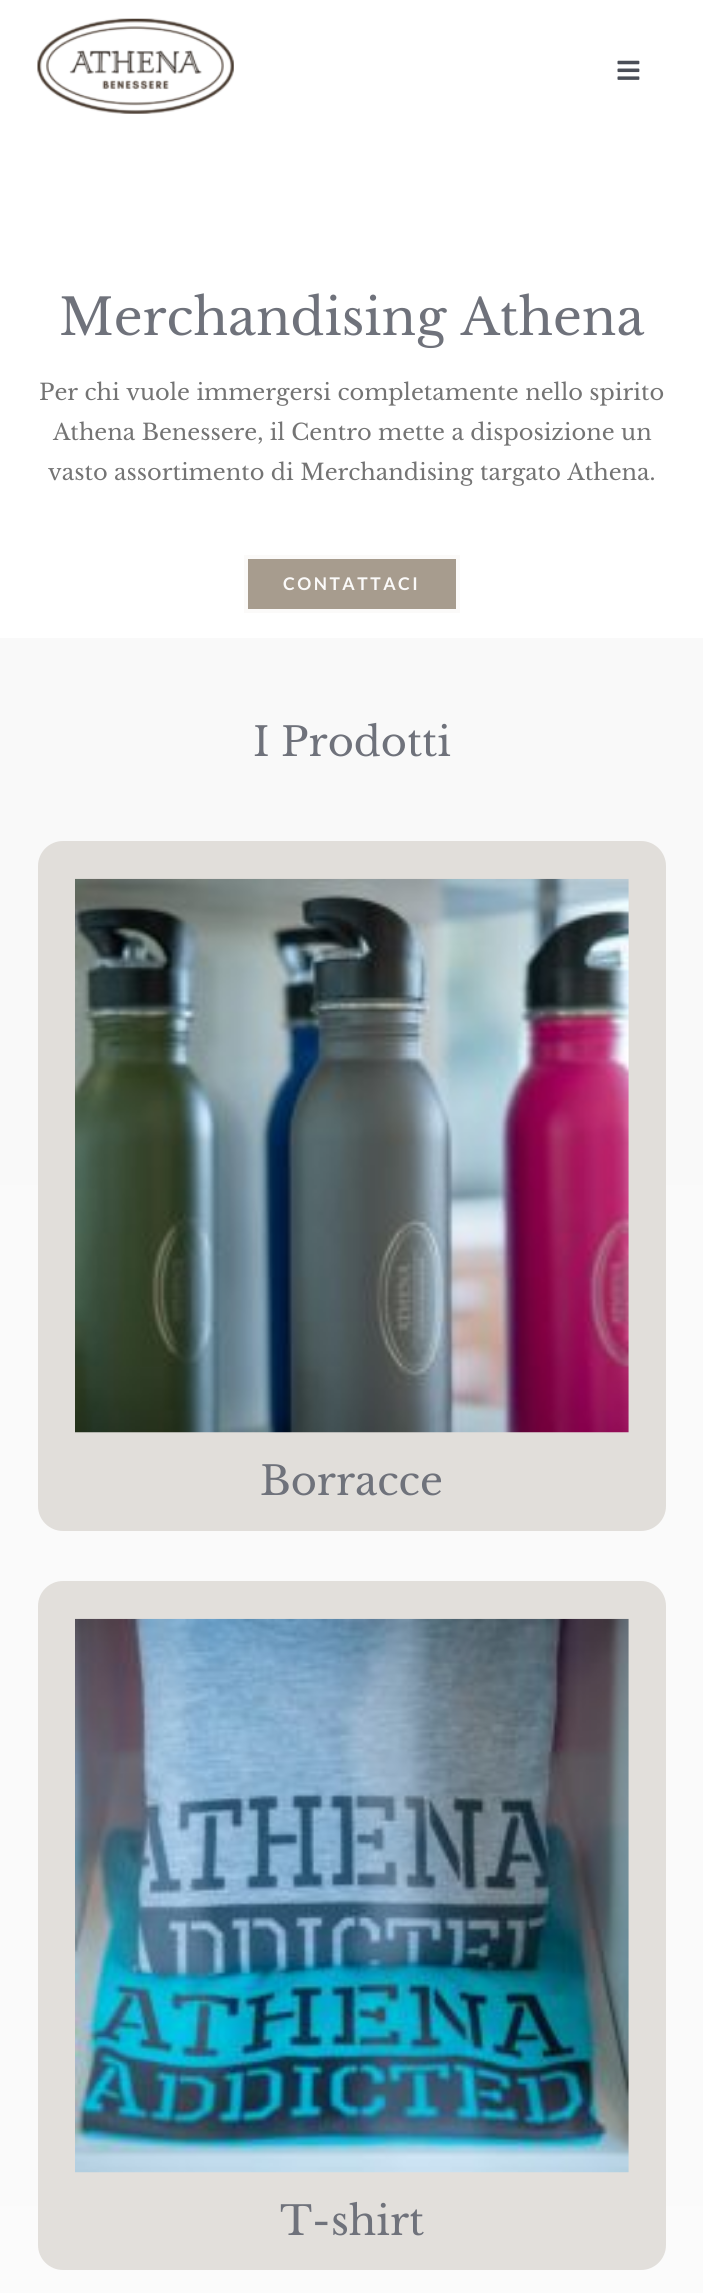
import math
import cairo



def draw_spaced(context, x, y, s, letter, word):
    context.move_to(x, y)
    for ch in s:
        context.show_text(ch)
        context.rel_move_to(letter + word * (ch == ' '), 0)


def rounded_rect(context, x, y, w, h, r):
    context.new_sub_path()
    for i, (u, v) in enumerate([(x + w - r, y + h - r), (x + r, y + h - r), (x + r, y + r), (x + w - r, y + r)]):
        context.arc(u, v, r, i * math.pi / 2, (i + 1) * math.pi / 2)
    context.close_path()


def draw_image(context, path, x, y, w, h):
    context.save()
    context.set_source_surface(cairo.ImageSurface.create_from_png(path), x, y)
    context.rectangle(x, y, w, h)
    context.fill()
    context.restore()


def draw(context):
    context.set_source_rgb(1, 1, 1)
    context.paint()
    draw_image(context, "images/1.png", 37, 18, 197, 96)
    draw_image(context, "images/2.png", 617, 60, 23, 20)
    context.set_source_rgb(167 / 255, 156 / 255, 142 / 255)
    context.rectangle(246, 557, 212, 54)
    context.fill_preserve()
    context.set_source_rgb(251 / 255, 250 / 255, 249 / 255)
    context.set_line_width(4)
    context.stroke()
    context.set_source_rgb(249 / 255, 249 / 255, 249 / 255)
    context.rectangle(0, 638, 703, 37)
    context.fill()
    gradient = cairo.LinearGradient(352, 675, 352, 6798)
    gradient.add_color_stop_rgba(0, 249 / 255, 249 / 255, 249 / 255, 1)
    gradient.add_color_stop_rgba(1, 1, 1, 1, 1)
    context.set_source(gradient)
    context.rectangle(0, 675, 703, 1618)
    context.fill()
    context.set_source_rgb(225 / 255, 222 / 255, 218 / 255)
    rounded_rect(context, 38, 841, 628, 690, 25)
    context.fill()
    draw_image(context, "images/3.png", 75, 878, 554, 555)
    context.set_source_rgb(226 / 255, 223 / 255, 219 / 255)
    rounded_rect(context, 38, 1581, 628, 689, 25)
    context.fill()
    draw_image(context, "images/4.png", 75, 1618, 554, 555)
    context.select_font_face("Libre Baskerville")
    context.set_font_size(50.25)
    context.set_source_rgb(111 / 255, 114 / 255, 123 / 255)
    context.move_to(59, 335)
    context.show_text("Merchandising Athena")
    context.set_font_size(22.5)
    context.set_source_rgb(116 / 255, 116 / 255, 116 / 255)
    context.move_to(39, 400)
    context.show_text("Per chi vuole immergersi completamente nello spirito")
    context.move_to(53, 440)
    context.show_text("Athena Benessere, il Centro mette a disposizione un")
    context.move_to(48, 480)
    context.show_text("vasto assortimento di Merchandising targato Athena.")
    context.select_font_face("Lato", cairo.FontSlant.NORMAL, cairo.FontWeight.BOLD)
    context.set_font_size(17.5)
    context.set_source_rgb(251 / 255, 250 / 255, 249 / 255)
    draw_spaced(context, 283, 590, "CONTATTACI", 2.5, 0)
    context.select_font_face("Libre Baskerville")
    context.set_font_size(40)
    context.set_source_rgb(111 / 255, 114 / 255, 123 / 255)
    context.move_to(253, 756)
    context.show_text("I Prodotti")
    context.move_to(260, 1495)
    context.show_text("Borracce")
    context.move_to(280, 2235)
    context.show_text("T-shirt")


surface = cairo.ImageSurface(cairo.Format.RGB24, 703, 2293)
context = cairo.Context(surface)
options = cairo.FontOptions()
options.set_hint_metrics(cairo.HintMetrics.OFF)
options.set_hint_style(cairo.HintStyle.NONE)
context.set_font_options(options)
context.set_miter_limit(4)
draw(context)
surface.write_to_png("out.png")
